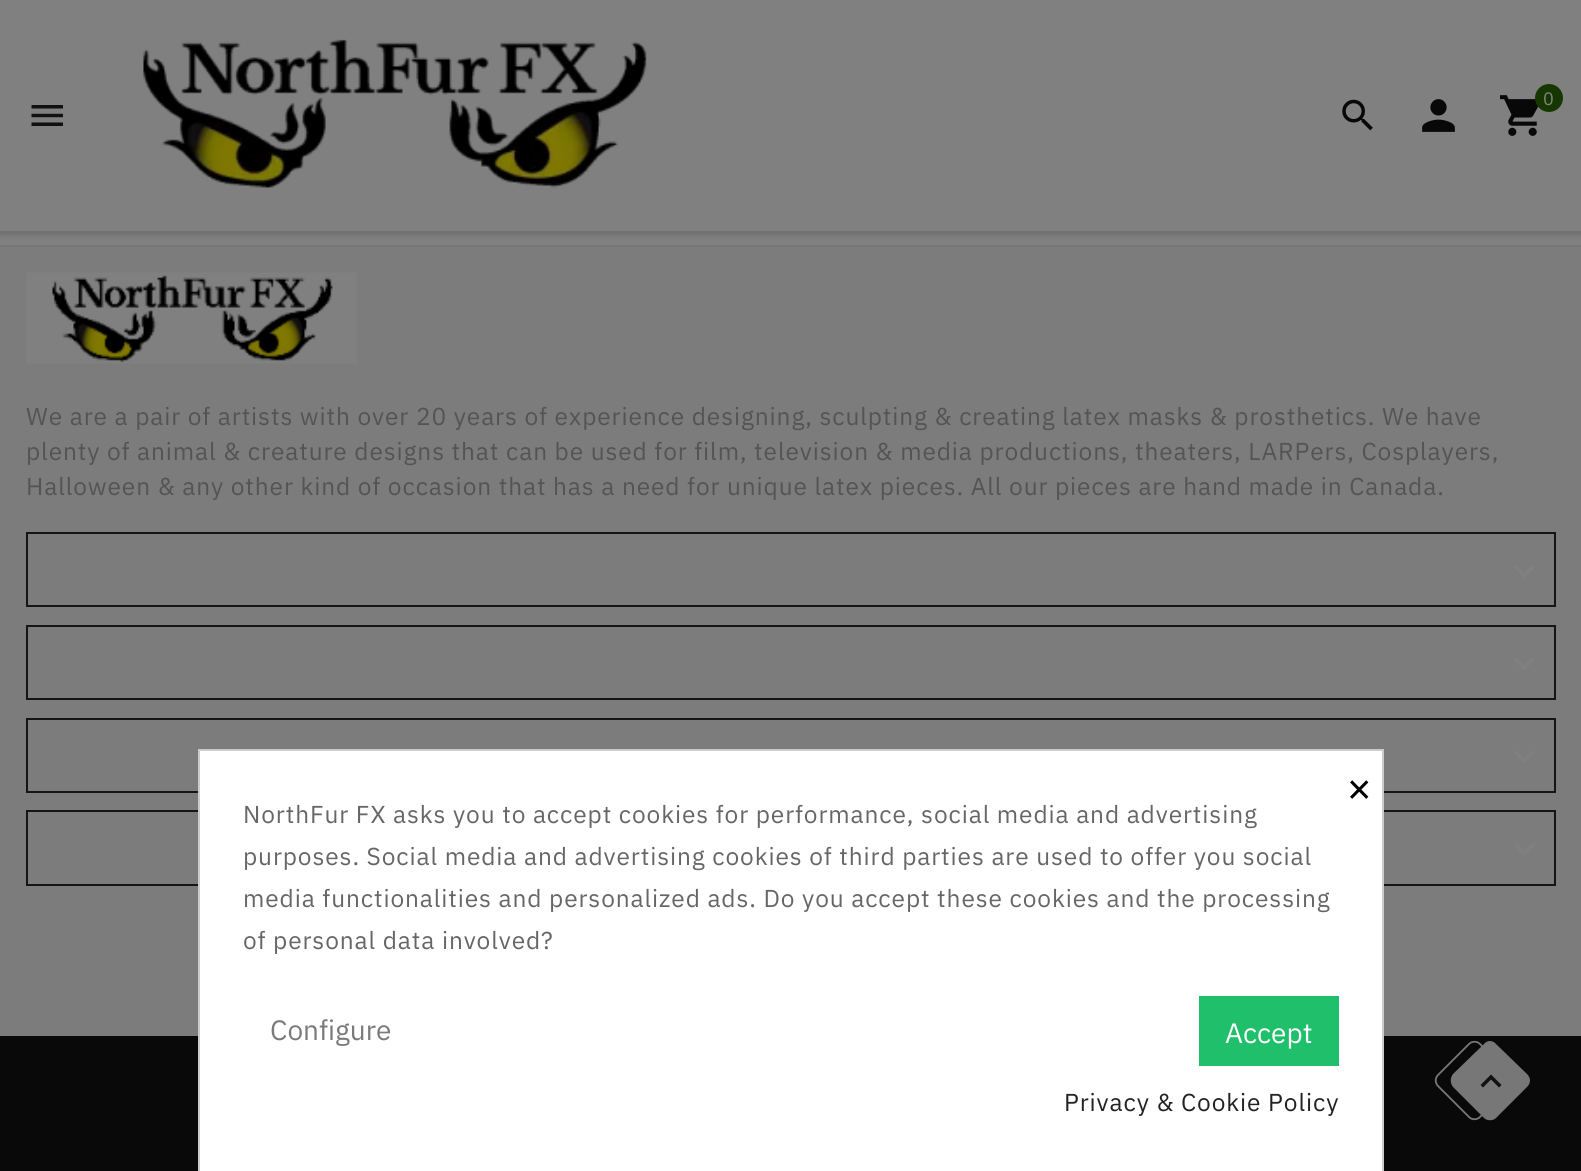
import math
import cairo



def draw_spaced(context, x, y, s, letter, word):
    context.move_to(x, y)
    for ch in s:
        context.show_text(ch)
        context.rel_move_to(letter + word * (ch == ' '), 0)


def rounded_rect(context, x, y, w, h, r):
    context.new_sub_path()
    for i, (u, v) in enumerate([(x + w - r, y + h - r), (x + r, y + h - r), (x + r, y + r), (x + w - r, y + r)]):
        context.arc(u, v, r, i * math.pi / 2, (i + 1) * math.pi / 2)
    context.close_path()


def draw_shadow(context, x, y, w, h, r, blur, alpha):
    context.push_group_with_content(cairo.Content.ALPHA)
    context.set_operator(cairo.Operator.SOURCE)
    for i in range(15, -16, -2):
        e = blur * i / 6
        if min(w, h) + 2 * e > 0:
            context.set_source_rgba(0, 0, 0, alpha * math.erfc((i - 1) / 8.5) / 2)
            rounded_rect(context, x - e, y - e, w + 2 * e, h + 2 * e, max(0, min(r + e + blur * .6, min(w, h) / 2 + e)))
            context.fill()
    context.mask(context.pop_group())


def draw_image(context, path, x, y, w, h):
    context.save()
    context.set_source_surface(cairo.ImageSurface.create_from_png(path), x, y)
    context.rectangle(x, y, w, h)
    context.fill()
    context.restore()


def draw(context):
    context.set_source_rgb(128 / 255, 128 / 255, 128 / 255)
    context.paint()
    context.save()
    context.rectangle(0, 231, 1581, 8)
    context.clip()
    context.set_source_rgb(64 / 255, 64 / 255, 64 / 255)
    draw_shadow(context, -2, 0, 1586, 235, 0, 2.5, 0.27)
    context.restore()
    draw_image(context, "images/1.png", 143, 39, 504, 149)
    draw_image(context, "images/2.png", 1342, 99, 31, 32)
    draw_image(context, "images/3.png", 1422, 99, 33, 33)
    draw_image(context, "images/4.png", 1500, 95, 39, 41)
    context.set_source_rgb(22 / 255, 56 / 255, 0)
    context.arc(1549, 98, 14, 0, 2 * math.pi)
    context.fill()
    draw_image(context, "images/5.png", 31, 105, 32, 21)
    context.set_source_rgb(124 / 255, 124 / 255, 124 / 255)
    context.rectangle(0, 247, 1581, 789)
    context.fill()
    context.set_source_rgb(119 / 255, 119 / 255, 119 / 255)
    context.rectangle(0, 245, 1581, 2)
    context.fill()
    draw_image(context, "images/6.png", 26, 272, 331, 92)
    context.rectangle(27, 533, 1528, 73)
    context.set_source_rgb(21 / 255, 21 / 255, 21 / 255)
    context.stroke()
    context.set_source_rgb(128 / 255, 128 / 255, 128 / 255)
    context.new_path()
    context.move_to(1516, 565)
    context.line_to(1524, 573)
    context.line_to(1532.5, 565)
    context.line_to(1535, 567.5)
    context.line_to(1524, 578)
    context.line_to(1514, 567.5)
    context.close_path()
    context.fill()
    context.rectangle(27, 626, 1528, 73)
    context.set_source_rgb(21 / 255, 21 / 255, 21 / 255)
    context.stroke()
    context.set_source_rgb(128 / 255, 128 / 255, 128 / 255)
    context.new_path()
    context.move_to(1516, 657.5)
    context.line_to(1524, 665.5)
    context.line_to(1532.5, 657.5)
    context.line_to(1535, 660)
    context.line_to(1524, 670.5)
    context.line_to(1514, 660)
    context.close_path()
    context.fill()
    context.rectangle(27, 719, 1528, 73)
    context.set_source_rgb(21 / 255, 21 / 255, 21 / 255)
    context.stroke()
    context.set_source_rgb(128 / 255, 128 / 255, 128 / 255)
    context.new_path()
    context.move_to(1516, 750.5)
    context.line_to(1524, 758.5)
    context.line_to(1532.5, 750.5)
    context.line_to(1535, 753)
    context.line_to(1524, 763.5)
    context.line_to(1514, 753)
    context.close_path()
    context.fill()
    context.rectangle(27, 811, 1528, 74)
    context.set_source_rgb(21 / 255, 21 / 255, 21 / 255)
    context.stroke()
    context.set_source_rgb(128 / 255, 128 / 255, 128 / 255)
    context.new_path()
    context.move_to(1516, 843)
    context.line_to(1524, 851)
    context.line_to(1532.5, 843)
    context.line_to(1535, 845.5)
    context.line_to(1524, 856)
    context.line_to(1514, 845.5)
    context.close_path()
    context.fill()
    context.set_source_rgb(9 / 255, 9 / 255, 9 / 255)
    context.rectangle(0, 1036, 1581, 135)
    context.fill()
    context.new_path()
    context.move_to(1480, 1044)
    context.line_to(1511, 1075)
    context.curve_to(1514, 1078, 1514, 1083, 1511, 1086)
    context.line_to(1480, 1117)
    context.curve_to(1477, 1120, 1472, 1120, 1469, 1117)
    context.line_to(1438, 1086)
    context.curve_to(1435, 1083, 1435, 1078, 1438, 1075)
    context.line_to(1469, 1044)
    context.curve_to(1472, 1041, 1477, 1041, 1480, 1044)
    context.close_path()
    context.set_source_rgb(119 / 255, 119 / 255, 119 / 255)
    context.set_line_width(1.8)
    context.stroke()
    context.new_path()
    context.move_to(1496, 1044)
    context.line_to(1527, 1074)
    context.curve_to(1531, 1078, 1531, 1083, 1527, 1087)
    context.line_to(1496, 1118)
    context.curve_to(1493, 1121, 1487, 1121, 1484, 1118)
    context.line_to(1453, 1087)
    context.curve_to(1450, 1083, 1450, 1078, 1453, 1074)
    context.line_to(1484, 1044)
    context.curve_to(1487, 1040, 1493, 1040, 1496, 1044)
    context.close_path()
    context.fill()
    context.set_source_rgb(17 / 255, 17 / 255, 17 / 255)
    context.new_path()
    context.move_to(1483, 1087.5)
    context.line_to(1480.5, 1085)
    context.line_to(1491, 1074.5)
    context.line_to(1501.5, 1085)
    context.line_to(1499, 1087.5)
    context.line_to(1491, 1079.5)
    context.close_path()
    context.fill()
    context.set_source_rgb(1, 1, 1)
    context.rectangle(199, 750, 1184, 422)
    context.fill_preserve()
    context.set_source_rgb(204 / 255, 204 / 255, 204 / 255)
    context.set_line_width(2)
    context.stroke()
    context.set_source_rgb(32 / 255, 191 / 255, 107 / 255)
    context.rectangle(1199, 996, 140, 70)
    context.fill()
    context.select_font_face("IBM Plex Sans")
    context.set_font_size(18)
    context.set_source_rgb(128 / 255, 128 / 255, 128 / 255)
    draw_spaced(context, 1543, 105, "0", 0.88, 0)
    context.set_font_size(24.5)
    context.set_source_rgb(84 / 255, 84 / 255, 84 / 255)
    draw_spaced(context, 26, 425, "We are a pair of artists with over 20 years of experience designing, sculpting & creating latex masks & prosthetics. We have", 0.88, 0)
    draw_spaced(context, 26, 460, "plenty of animal & creature designs that can be used for film, television & media productions, theaters, LARPers, Cosplayers,", 0.88, 0)
    draw_spaced(context, 26, 495, "Halloween & any other kind of occasion that has a need for unique latex pieces. All our pieces are hand made in Canada.", 0.88, 0)
    context.set_font_size(44)
    context.set_source_rgb(0, 0, 0)
    context.move_to(1346, 803)
    context.show_text("×")
    context.set_font_size(24.5)
    context.set_source_rgb(102 / 255, 102 / 255, 102 / 255)
    draw_spaced(context, 243, 823, "NorthFur FX asks you to accept cookies for performance, social media and advertising", 0.88, 0)
    draw_spaced(context, 243, 865, "purposes. Social media and advertising cookies of third parties are used to offer you social", 0.88, 0)
    draw_spaced(context, 243, 907, "media functionalities and personalized ads. Do you accept these cookies and the processing", 0.88, 0)
    draw_spaced(context, 243, 949, "of personal data involved?", 0.88, 0)
    context.set_font_size(28)
    context.set_source_rgb(122 / 255, 122 / 255, 122 / 255)
    context.move_to(270, 1040)
    context.show_text("Configure")
    context.set_source_rgb(1, 1, 1)
    context.move_to(1225, 1043)
    context.show_text("Accept")
    context.set_font_size(24.5)
    context.set_source_rgb(34 / 255, 34 / 255, 34 / 255)
    draw_spaced(context, 1064, 1111, "Privacy & Cookie Policy", 0.88, 0)


surface = cairo.ImageSurface(cairo.Format.RGB24, 1581, 1171)
context = cairo.Context(surface)
options = cairo.FontOptions()
options.set_hint_metrics(cairo.HintMetrics.OFF)
options.set_hint_style(cairo.HintStyle.NONE)
context.set_font_options(options)
context.set_miter_limit(4)
draw(context)
surface.write_to_png("out.png")
